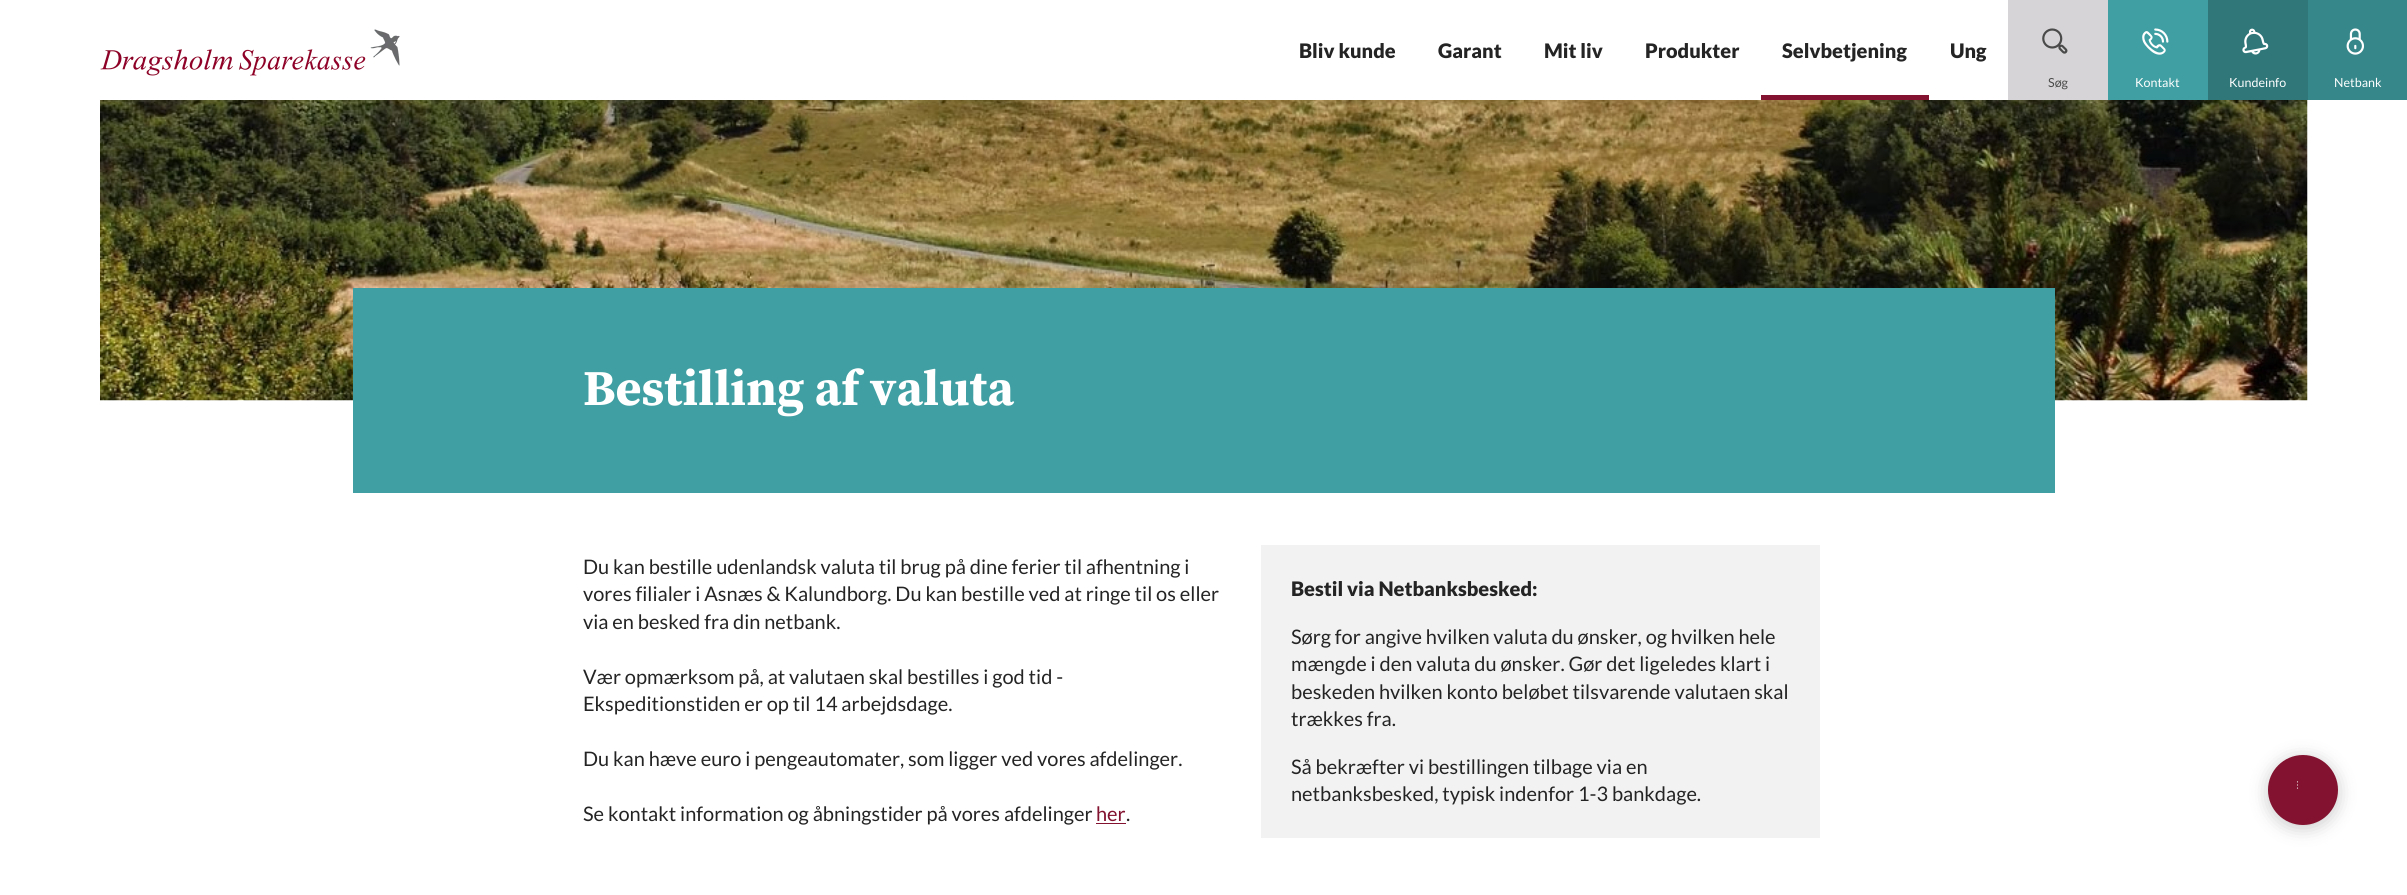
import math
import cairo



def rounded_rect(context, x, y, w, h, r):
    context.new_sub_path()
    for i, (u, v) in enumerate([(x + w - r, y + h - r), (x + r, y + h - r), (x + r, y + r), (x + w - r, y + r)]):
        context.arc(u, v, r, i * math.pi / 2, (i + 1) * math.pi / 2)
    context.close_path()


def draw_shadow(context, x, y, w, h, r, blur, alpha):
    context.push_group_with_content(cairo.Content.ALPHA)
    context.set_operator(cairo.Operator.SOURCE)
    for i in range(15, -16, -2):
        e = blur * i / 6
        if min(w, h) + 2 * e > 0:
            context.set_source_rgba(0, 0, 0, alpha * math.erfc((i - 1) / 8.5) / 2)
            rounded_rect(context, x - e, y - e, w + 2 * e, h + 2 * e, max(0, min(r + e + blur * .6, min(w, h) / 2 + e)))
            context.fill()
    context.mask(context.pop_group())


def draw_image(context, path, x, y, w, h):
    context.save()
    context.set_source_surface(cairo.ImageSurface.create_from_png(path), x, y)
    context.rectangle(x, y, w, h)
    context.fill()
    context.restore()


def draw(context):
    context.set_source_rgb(1, 1, 1)
    context.paint()
    draw_image(context, "images/1.png", 100, 29, 300, 47)
    context.set_source_rgb(130 / 255, 18 / 255, 47 / 255)
    context.rectangle(1761, 95, 168, 5)
    context.fill()
    context.set_source_rgb(214 / 255, 212 / 255, 214 / 255)
    context.rectangle(2008, 0, 100, 100)
    context.fill()
    draw_image(context, "images/2.png", 2042, 28, 26, 26)
    context.set_source_rgb(64 / 255, 159 / 255, 162 / 255)
    context.rectangle(2108, 0, 100, 100)
    context.fill()
    draw_image(context, "images/3.png", 2142, 28, 27, 27)
    context.set_source_rgb(48 / 255, 119 / 255, 122 / 255)
    context.rectangle(2208, 0, 100, 100)
    context.fill()
    draw_image(context, "images/4.png", 2242, 28, 27, 27)
    context.set_source_rgb(54 / 255, 135 / 255, 138 / 255)
    context.rectangle(2308, 0, 99, 100)
    context.fill()
    draw_image(context, "images/5.png", 2346, 28, 18, 27)
    context.set_source_rgb(0, 0, 0)
    draw_shadow(context, 2268, 758, 70, 70, 35, 9, 0.21)
    context.set_source_rgb(130 / 255, 18 / 255, 47 / 255)
    context.arc(2303, 790, 35, 0, 2 * math.pi)
    context.fill()
    context.set_source_rgb(1, 1, 1)
    context.arc(2297.5, 785, 0.6, 0, 2 * math.pi)
    context.fill()
    context.arc(2297.5, 781.9, 0.6, 0, 2 * math.pi)
    context.fill()
    context.arc(2297.5, 788.1, 0.6, 0, 2 * math.pi)
    context.fill()
    draw_image(context, "images/6.png", 100, 100, 2208, 301)
    context.set_source_rgb(64 / 255, 159 / 255, 162 / 255)
    context.rectangle(353, 288, 1702, 205)
    context.fill()
    context.set_source_rgb(130 / 255, 18 / 255, 47 / 255)
    context.rectangle(1096, 823, 30, 1)
    context.fill()
    context.set_source_rgb(242 / 255, 242 / 255, 242 / 255)
    context.rectangle(1261, 545, 559, 293)
    context.fill()
    context.select_font_face("Lato Black")
    context.set_font_size(20)
    context.set_source_rgb(36 / 255, 36 / 255, 36 / 255)
    context.move_to(1299, 58)
    context.show_text("Bliv kunde")
    context.move_to(1438, 58)
    context.show_text("Garant")
    context.move_to(1544, 58)
    context.show_text("Mit liv")
    context.move_to(1645, 58)
    context.show_text("Produkter")
    context.move_to(1782, 58)
    context.show_text("Selvbetjening")
    context.move_to(1950, 58)
    context.show_text("Ung")
    context.select_font_face("Lato")
    context.set_font_size(12.5)
    context.set_source_rgb(74 / 255, 74 / 255, 74 / 255)
    context.move_to(2048, 87)
    context.show_text("Søg")
    context.set_source_rgb(1, 1, 1)
    context.move_to(2135, 87)
    context.show_text("Kontakt")
    context.move_to(2229, 87)
    context.show_text("Kundeinfo")
    context.move_to(2334, 87)
    context.show_text("Netbank")
    context.select_font_face("Source Serif Pro", cairo.FontSlant.NORMAL, cairo.FontWeight.BOLD)
    context.set_font_size(50)
    context.move_to(583, 405)
    context.show_text("Bestilling af valuta")
    context.select_font_face("Lato")
    context.set_font_size(20)
    context.set_source_rgb(36 / 255, 36 / 255, 36 / 255)
    context.move_to(583, 574)
    context.show_text("Du kan bestille udenlandsk valuta til brug på dine ferier til afhentning i")
    context.move_to(583, 601)
    context.show_text("vores filialer i Asnæs & Kalundborg. Du kan bestille ved at ringe til os eller")
    context.move_to(583, 629)
    context.show_text("via en besked fra din netbank.")
    context.move_to(583, 684)
    context.show_text("Vær opmærksom på, at valutaen skal bestilles i god tid -")
    context.move_to(583, 711)
    context.show_text("Ekspeditionstiden er op til 14 arbejdsdage.")
    context.move_to(583, 766)
    context.show_text("Du kan hæve euro i pengeautomater, som ligger ved vores afdelinger.")
    context.move_to(583, 821)
    context.show_text("Se kontakt information og åbningstider på vores afdelinger")
    context.set_source_rgb(130 / 255, 18 / 255, 47 / 255)
    context.move_to(1096, 821)
    context.show_text("her")
    context.set_source_rgb(36 / 255, 36 / 255, 36 / 255)
    context.move_to(1126, 821)
    context.show_text(".")
    context.select_font_face("Lato Black")
    context.move_to(1291, 596)
    context.show_text("Bestil via Netbanksbesked:")
    context.select_font_face("Lato")
    context.move_to(1291, 644)
    context.show_text("Sørg for angive hvilken valuta du ønsker, og hvilken hele")
    context.move_to(1291, 671)
    context.show_text("mængde i den valuta du ønsker. Gør det ligeledes klart i")
    context.move_to(1291, 699)
    context.show_text("beskeden hvilken konto beløbet tilsvarende valutaen skal")
    context.move_to(1291, 726)
    context.show_text("trækkes fra.")
    context.move_to(1291, 774)
    context.show_text("Så bekræfter vi bestillingen tilbage via en")
    context.move_to(1291, 801)
    context.show_text("netbanksbesked, typisk indenfor 1-3 bankdage.")


surface = cairo.ImageSurface(cairo.Format.RGB24, 2407, 895)
context = cairo.Context(surface)
options = cairo.FontOptions()
options.set_hint_metrics(cairo.HintMetrics.OFF)
options.set_hint_style(cairo.HintStyle.NONE)
context.set_font_options(options)
context.set_miter_limit(4)
draw(context)
surface.write_to_png("out.png")
